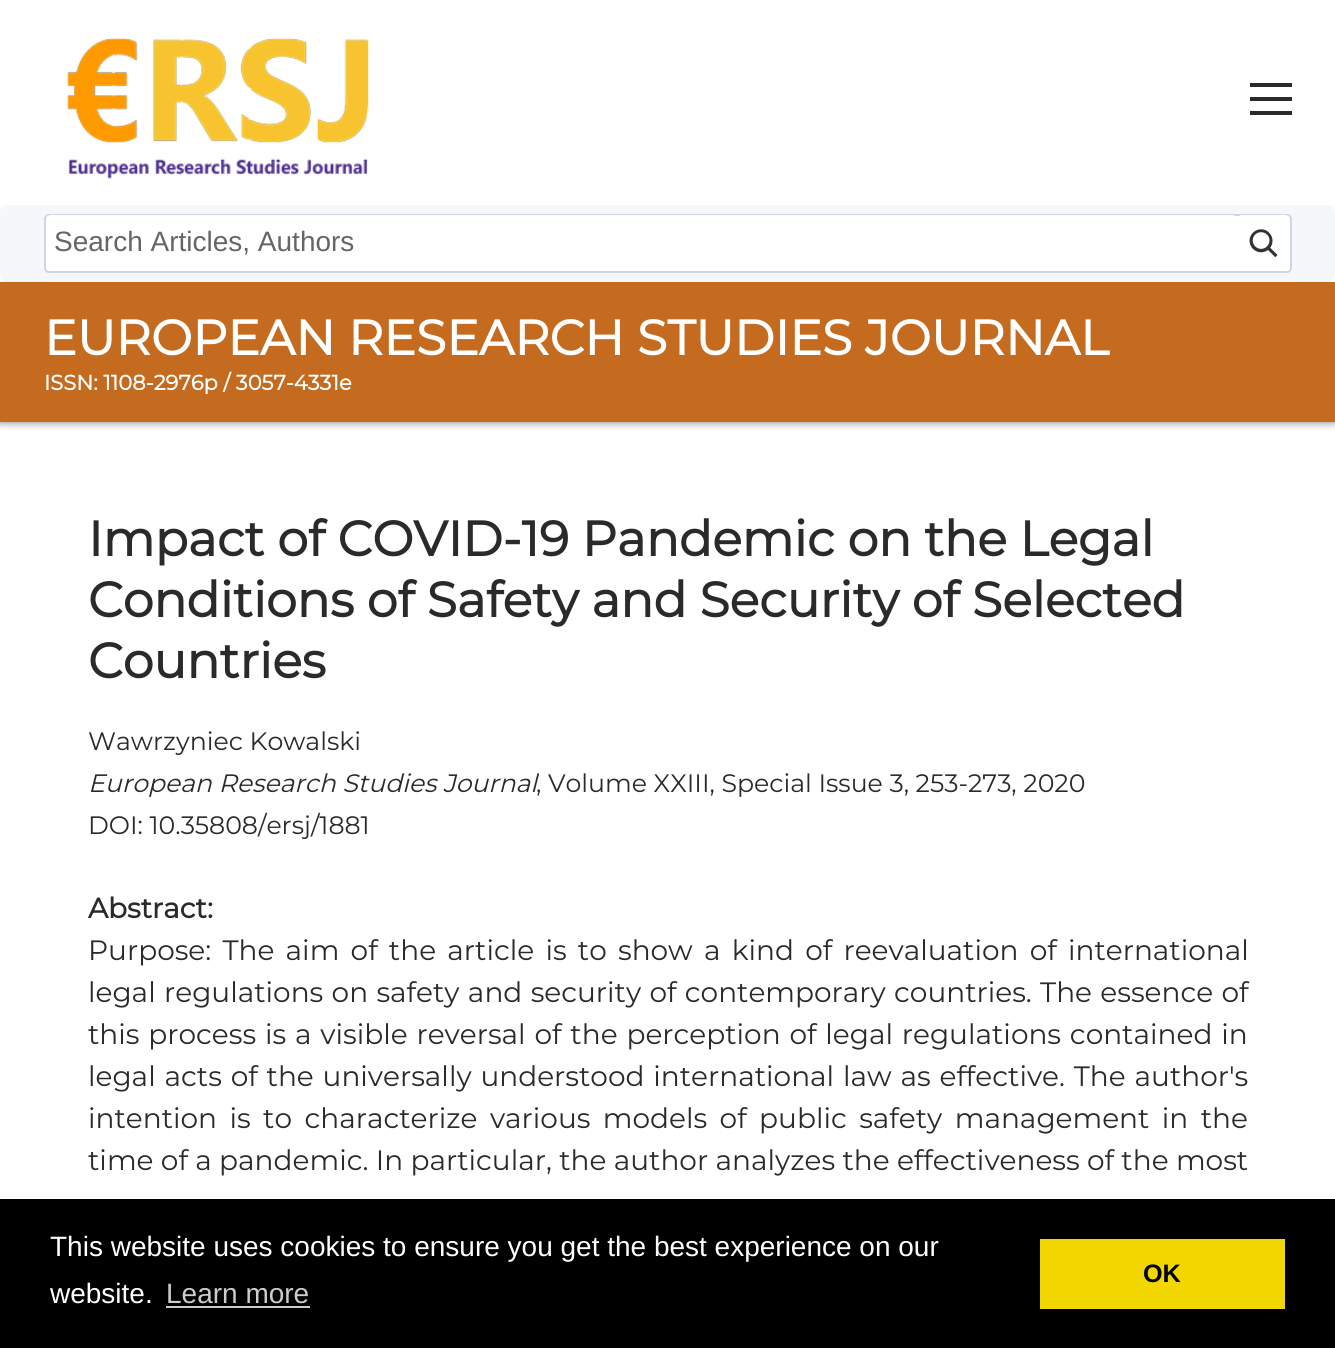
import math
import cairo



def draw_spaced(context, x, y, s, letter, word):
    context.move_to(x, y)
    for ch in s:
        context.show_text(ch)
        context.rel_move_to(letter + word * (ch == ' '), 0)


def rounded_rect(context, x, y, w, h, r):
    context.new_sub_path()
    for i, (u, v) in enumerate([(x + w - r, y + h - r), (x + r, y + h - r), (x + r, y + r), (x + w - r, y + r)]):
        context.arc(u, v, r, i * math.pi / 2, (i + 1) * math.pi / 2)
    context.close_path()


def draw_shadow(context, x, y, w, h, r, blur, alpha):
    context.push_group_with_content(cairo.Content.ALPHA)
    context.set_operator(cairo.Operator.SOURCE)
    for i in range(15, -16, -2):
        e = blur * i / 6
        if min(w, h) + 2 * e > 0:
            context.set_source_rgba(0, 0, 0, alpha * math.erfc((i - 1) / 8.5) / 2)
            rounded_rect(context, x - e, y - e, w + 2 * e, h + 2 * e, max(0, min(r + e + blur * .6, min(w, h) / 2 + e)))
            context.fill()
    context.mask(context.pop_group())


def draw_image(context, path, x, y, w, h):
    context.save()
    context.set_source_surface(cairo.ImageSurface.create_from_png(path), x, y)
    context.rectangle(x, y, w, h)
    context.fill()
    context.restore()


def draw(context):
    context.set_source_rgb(1, 1, 1)
    context.paint()
    context.save()
    context.rectangle(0, 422, 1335, 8)
    context.clip()
    context.set_source_rgb(50 / 255, 50 / 255, 50 / 255)
    draw_shadow(context, 0, 0, 1335, 422, 0, 4.5, 0.65)
    context.restore()
    draw_image(context, "images/1.png", 67, 37, 302, 142)
    context.set_source_rgb(42 / 255, 42 / 255, 42 / 255)
    context.new_path()
    context.move_to(1250, 83)
    context.line_to(1292, 83)
    context.line_to(1292, 87)
    context.line_to(1250, 87)
    context.close_path()
    context.move_to(1250, 111)
    context.line_to(1292, 111)
    context.line_to(1292, 115)
    context.line_to(1250, 115)
    context.close_path()
    context.move_to(1250, 97)
    context.line_to(1292, 97)
    context.line_to(1292, 101)
    context.line_to(1250, 101)
    context.close_path()
    context.fill()
    context.set_source_rgb(245 / 255, 247 / 255, 250 / 255)
    rounded_rect(context, 0, 205, 1335, 77, 7)
    context.fill()
    context.set_source_rgb(1, 1, 1)
    rounded_rect(context, 45, 215, 1246, 57, 4)
    context.fill_preserve()
    context.set_source_rgb(207 / 255, 213 / 255, 228 / 255)
    context.stroke()
    context.set_source_rgb(1, 1, 1)
    rounded_rect(context, 46, 215, 1191, 56, 5)
    context.fill()
    rounded_rect(context, 1237, 215, 53, 56, 5)
    context.fill()
    draw_image(context, "images/2.png", 1249, 229, 29, 29)
    context.set_source_rgb(197 / 255, 107 / 255, 31 / 255)
    context.rectangle(0, 282, 1335, 140)
    context.fill()
    context.set_source_rgb(0, 0, 0)
    context.rectangle(0, 1199, 1335, 149)
    context.fill()
    context.set_source_rgb(204 / 255, 204 / 255, 204 / 255)
    context.rectangle(166, 1306, 144, 2)
    context.fill()
    context.set_source_rgb(241 / 255, 214 / 255, 0)
    context.rectangle(1040, 1239, 245, 70)
    context.fill()
    context.select_font_face("Liberation Sans")
    context.set_font_size(28)
    context.set_source_rgb(102 / 255, 102 / 255, 102 / 255)
    context.move_to(54, 251)
    context.show_text("Search Articles, Authors")
    context.select_font_face("Montserrat", cairo.FontSlant.NORMAL, cairo.FontWeight.BOLD)
    context.set_font_size(49)
    context.set_source_rgb(1, 1, 1)
    context.move_to(44, 355)
    context.show_text("EUROPEAN RESEARCH STUDIES JOURNAL")
    context.set_font_size(21)
    context.move_to(44, 390)
    context.show_text("ISSN: 1108-2976p / 3057-4331e")
    context.set_font_size(49)
    context.set_source_rgb(42 / 255, 42 / 255, 42 / 255)
    context.move_to(88, 556)
    context.show_text("Impact of COVID-19 Pandemic on the Legal")
    context.move_to(88, 617)
    context.show_text("Conditions of Safety and Security of Selected")
    context.move_to(88, 678)
    context.show_text("Countries")
    context.select_font_face("Montserrat Thin")
    context.set_font_size(25.2)
    context.move_to(88, 750)
    context.show_text("Wawrzyniec Kowalski")
    context.select_font_face("Montserrat Thin", cairo.FontSlant.ITALIC)
    context.move_to(88, 792)
    context.show_text("European Research Studies Journal")
    context.select_font_face("Montserrat Thin")
    context.move_to(536, 792)
    context.show_text(", Volume XXIII, Special Issue 3, 253-273, 2020")
    context.move_to(88, 834)
    context.show_text("DOI: 10.35808/ersj/1881")
    context.select_font_face("Montserrat", cairo.FontSlant.NORMAL, cairo.FontWeight.BOLD)
    context.set_font_size(28)
    context.move_to(88, 918)
    context.show_text("Abstract:")
    context.select_font_face("Montserrat Thin")
    draw_spaced(context, 88, 960, "Purpose: The aim of the article is to show a kind of reevaluation of international", 0, 3.9)
    draw_spaced(context, 88, 1002, "legal regulations on safety and security of contemporary countries. The essence of", 0, 1)
    draw_spaced(context, 88, 1044, "this process is a visible reversal of the perception of legal regulations contained in", 0, 1.5)
    draw_spaced(context, 88, 1086, "legal acts of the universally understood international law as effective. The author's", 0, 1.5)
    draw_spaced(context, 88, 1128, "intention is to characterize various models of public safety management in the", 0, 5.1)
    context.move_to(88, 1170)
    context.show_text("time of a pandemic. In particular, the author analyzes the effectiveness of the most")
    context.select_font_face("Liberation Sans")
    context.set_source_rgb(1, 1, 1)
    context.move_to(50, 1256)
    context.show_text("This website uses cookies to ensure you get the best experience on our")
    context.move_to(50, 1303)
    context.show_text("website.")
    context.set_source_rgb(204 / 255, 204 / 255, 204 / 255)
    context.move_to(166, 1303)
    context.show_text("Learn more")
    context.select_font_face("Liberation Sans", cairo.FontSlant.NORMAL, cairo.FontWeight.BOLD)
    context.set_font_size(25.2)
    context.set_source_rgb(0, 0, 0)
    context.move_to(1143, 1282)
    context.show_text("OK")


surface = cairo.ImageSurface(cairo.Format.RGB24, 1335, 1348)
context = cairo.Context(surface)
options = cairo.FontOptions()
options.set_hint_metrics(cairo.HintMetrics.OFF)
options.set_hint_style(cairo.HintStyle.NONE)
context.set_font_options(options)
context.set_miter_limit(4)
draw(context)
surface.write_to_png("out.png")
